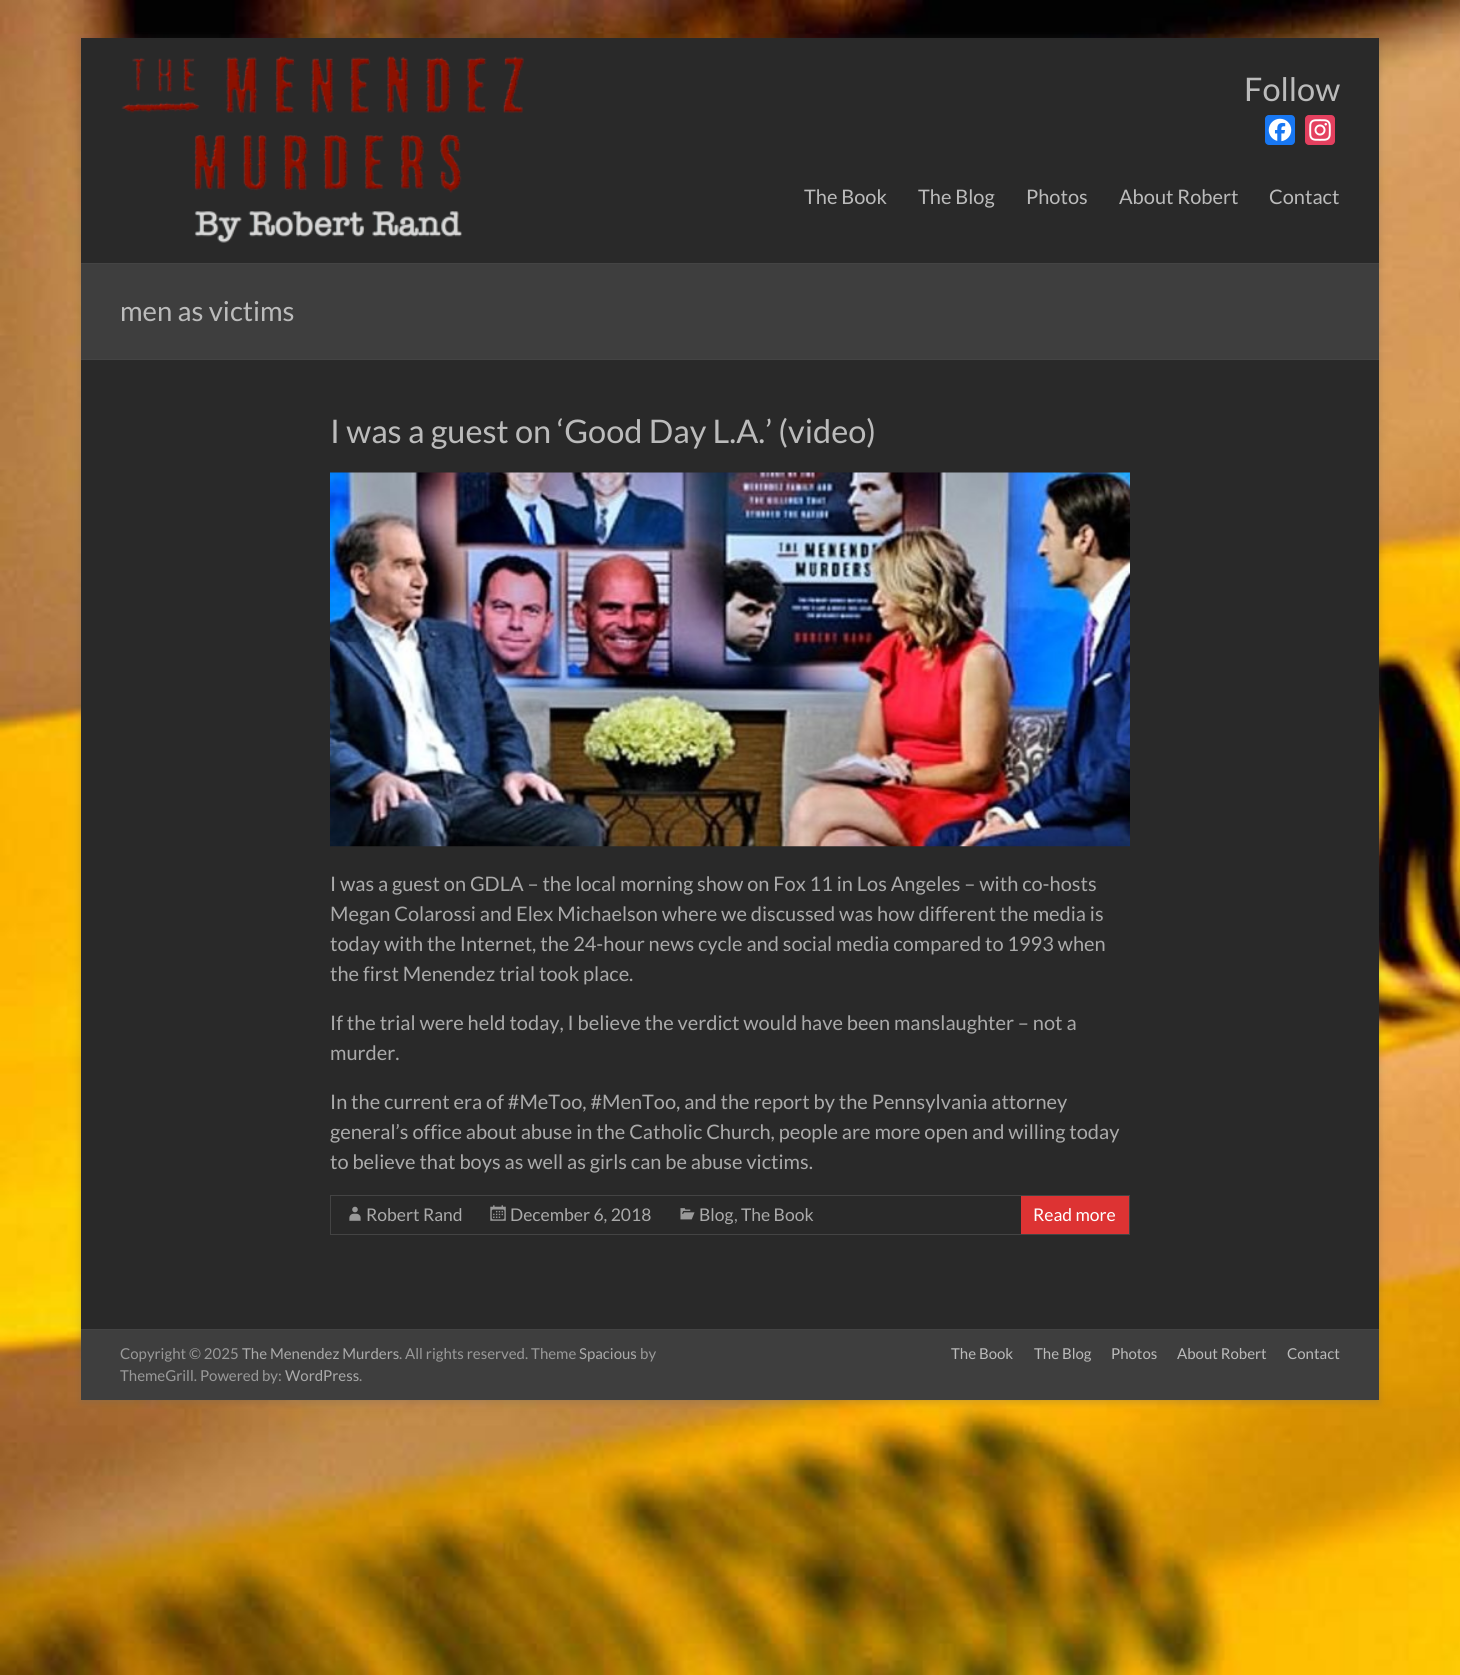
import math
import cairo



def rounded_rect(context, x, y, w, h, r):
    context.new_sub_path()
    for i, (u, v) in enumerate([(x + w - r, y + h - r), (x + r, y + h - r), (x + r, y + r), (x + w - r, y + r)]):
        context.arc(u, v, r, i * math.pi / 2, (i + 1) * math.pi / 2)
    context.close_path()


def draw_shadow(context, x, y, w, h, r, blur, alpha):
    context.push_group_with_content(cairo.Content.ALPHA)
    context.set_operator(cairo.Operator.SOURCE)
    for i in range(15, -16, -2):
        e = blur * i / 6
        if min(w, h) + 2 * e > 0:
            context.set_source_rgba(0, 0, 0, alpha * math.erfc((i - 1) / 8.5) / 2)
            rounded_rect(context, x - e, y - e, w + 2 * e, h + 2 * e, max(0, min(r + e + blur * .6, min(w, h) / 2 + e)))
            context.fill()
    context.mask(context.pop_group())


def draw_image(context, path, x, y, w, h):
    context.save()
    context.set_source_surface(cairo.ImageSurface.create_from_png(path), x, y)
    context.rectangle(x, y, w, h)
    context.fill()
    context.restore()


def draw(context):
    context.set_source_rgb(1, 1, 1)
    context.paint()
    draw_image(context, "images/1.png", 0, 0, 1460, 1675)
    context.set_source_rgb(100 / 255, 100 / 255, 100 / 255)
    draw_shadow(context, 81, 40, 1298, 1363, 0, 4, 0.3)
    context.set_source_rgb(41 / 255, 41 / 255, 41 / 255)
    context.rectangle(81, 38, 1298, 1291)
    context.fill()
    context.set_source_rgb(68 / 255, 68 / 255, 68 / 255)
    context.rectangle(81, 263, 1298, 1)
    context.fill()
    draw_image(context, "images/2.png", 121, 56, 403, 187)
    context.set_source_rgb(24 / 255, 119 / 255, 242 / 255)
    rounded_rect(context, 1265, 115, 30, 30, 4)
    context.fill()
    draw_image(context, "images/3.png", 1268, 118, 24, 24)
    context.set_source_rgb(228 / 255, 64 / 255, 95 / 255)
    rounded_rect(context, 1305, 115, 30, 30, 4)
    context.fill()
    draw_image(context, "images/4.png", 1309, 119, 22, 22)
    context.set_source_rgb(62 / 255, 62 / 255, 62 / 255)
    context.rectangle(81, 264, 1298, 95)
    context.fill()
    context.set_source_rgb(68 / 255, 68 / 255, 68 / 255)
    context.rectangle(81, 359, 1298, 1)
    context.fill()
    draw_image(context, "images/5.png", 330, 472, 800, 375)
    context.rectangle(330.5, 1195.5, 799, 39)
    context.set_line_width(1)
    context.stroke()
    draw_image(context, "images/6.png", 349, 1206, 12, 15)
    draw_image(context, "images/7.png", 490, 1205, 16, 16)
    draw_image(context, "images/8.png", 680, 1208, 15, 12)
    context.set_source_rgb(221 / 255, 51 / 255, 51 / 255)
    context.rectangle(1021, 1196, 108, 38)
    context.fill()
    context.set_source_rgb(62 / 255, 62 / 255, 62 / 255)
    context.rectangle(81, 1330, 1298, 70)
    context.fill()
    context.set_source_rgb(68 / 255, 68 / 255, 68 / 255)
    context.rectangle(81, 1329, 1298, 1)
    context.fill()
    context.select_font_face("Lato")
    context.set_font_size(32.5)
    context.set_source_rgb(187 / 255, 187 / 255, 187 / 255)
    context.move_to(1244, 101)
    context.show_text("Follow")
    context.set_font_size(20)
    context.move_to(804, 204)
    context.show_text("The Book")
    context.move_to(918, 204)
    context.show_text("The Blog")
    context.move_to(1026, 204)
    context.show_text("Photos")
    context.move_to(1119, 204)
    context.show_text("About Robert")
    context.move_to(1269, 204)
    context.show_text("Contact")
    context.set_font_size(27.5)
    context.move_to(120, 321)
    context.show_text("men as victims")
    context.set_font_size(32.5)
    context.move_to(330, 443)
    context.show_text("I was a guest on ‘Good Day L.A.’ (video)")
    context.set_font_size(20)
    context.set_source_rgb(170 / 255, 170 / 255, 170 / 255)
    context.move_to(330, 891)
    context.show_text("I was a guest on GDLA – the local morning show on Fox 11 in Los Angeles – with co-hosts")
    context.move_to(330, 921)
    context.show_text("Megan Colarossi and Elex Michaelson where we discussed was how different the media is")
    context.move_to(330, 951)
    context.show_text("today with the Internet, the 24-hour news cycle and social media compared to 1993 when")
    context.move_to(330, 981)
    context.show_text("the first Menendez trial took place.")
    context.move_to(330, 1030)
    context.show_text("If the trial were held today, I believe the verdict would have been manslaughter – not a")
    context.move_to(330, 1060)
    context.show_text("murder.")
    context.move_to(330, 1109)
    context.show_text("In the current era of #MeToo, #MenToo, and the report by the Pennsylvania attorney")
    context.move_to(330, 1139)
    context.show_text("general’s office about abuse in the Catholic Church, people are more open and willing today")
    context.move_to(330, 1169)
    context.show_text("to believe that boys as well as girls can be abuse victims.")
    context.set_font_size(17.5)
    context.move_to(366, 1221)
    context.show_text("Robert Rand")
    context.move_to(510, 1221)
    context.show_text("December 6, 2018")
    context.move_to(699, 1221)
    context.show_text("Blog")
    context.set_source_rgb(153 / 255, 153 / 255, 153 / 255)
    context.move_to(734, 1221)
    context.show_text(",")
    context.set_source_rgb(170 / 255, 170 / 255, 170 / 255)
    context.move_to(741, 1221)
    context.show_text("The Book")
    context.set_source_rgb(1, 1, 1)
    context.move_to(1033, 1221)
    context.show_text("Read more")
    context.set_font_size(15)
    context.set_source_rgb(153 / 255, 153 / 255, 153 / 255)
    context.move_to(120, 1359)
    context.show_text("Copyright © 2025")
    context.set_source_rgb(170 / 255, 170 / 255, 170 / 255)
    context.move_to(242, 1359)
    context.show_text("The Menendez Murders")
    context.set_source_rgb(153 / 255, 153 / 255, 153 / 255)
    context.move_to(399, 1359)
    context.show_text(". All rights reserved. Theme")
    context.set_source_rgb(170 / 255, 170 / 255, 170 / 255)
    context.move_to(579, 1359)
    context.show_text("Spacious")
    context.set_source_rgb(153 / 255, 153 / 255, 153 / 255)
    context.move_to(640, 1359)
    context.show_text("by")
    context.move_to(120, 1381)
    context.show_text("ThemeGrill. Powered by:")
    context.set_source_rgb(170 / 255, 170 / 255, 170 / 255)
    context.move_to(285, 1381)
    context.show_text("WordPress")
    context.set_source_rgb(153 / 255, 153 / 255, 153 / 255)
    context.move_to(359, 1381)
    context.show_text(".")
    context.set_source_rgb(187 / 255, 187 / 255, 187 / 255)
    context.move_to(951, 1359)
    context.show_text("The Book")
    context.move_to(1034, 1359)
    context.show_text("The Blog")
    context.move_to(1111, 1359)
    context.show_text("Photos")
    context.move_to(1177, 1359)
    context.show_text("About Robert")
    context.move_to(1287, 1359)
    context.show_text("Contact")


surface = cairo.ImageSurface(cairo.Format.RGB24, 1460, 1675)
context = cairo.Context(surface)
options = cairo.FontOptions()
options.set_hint_metrics(cairo.HintMetrics.OFF)
options.set_hint_style(cairo.HintStyle.NONE)
context.set_font_options(options)
context.set_miter_limit(4)
draw(context)
surface.write_to_png("out.png")
